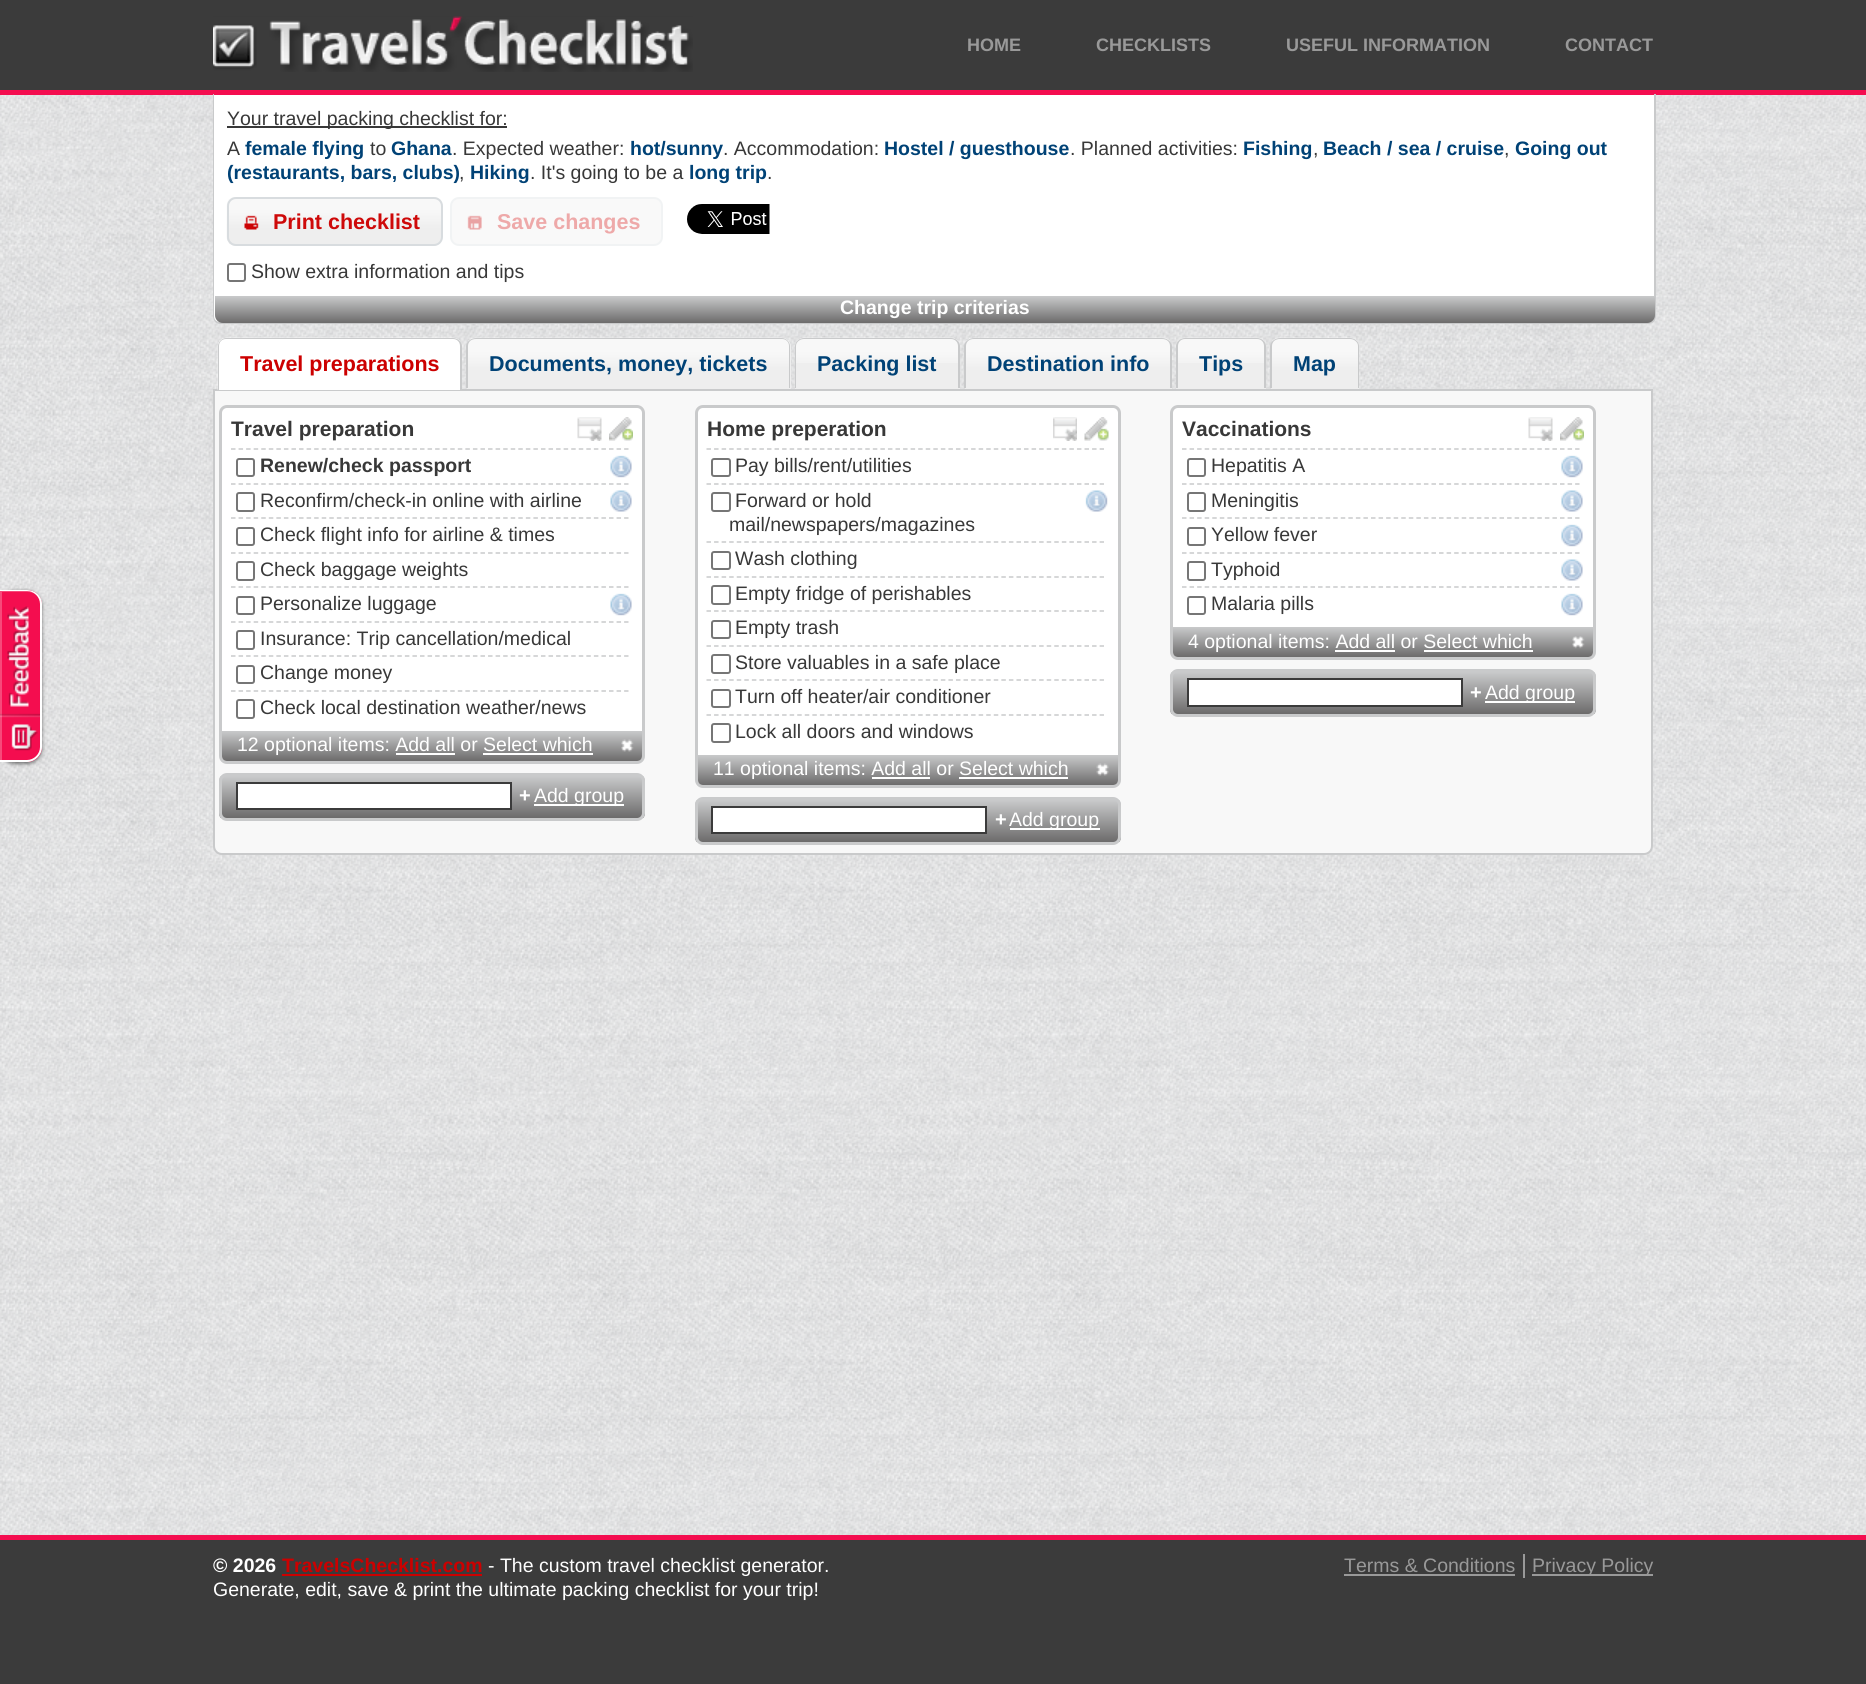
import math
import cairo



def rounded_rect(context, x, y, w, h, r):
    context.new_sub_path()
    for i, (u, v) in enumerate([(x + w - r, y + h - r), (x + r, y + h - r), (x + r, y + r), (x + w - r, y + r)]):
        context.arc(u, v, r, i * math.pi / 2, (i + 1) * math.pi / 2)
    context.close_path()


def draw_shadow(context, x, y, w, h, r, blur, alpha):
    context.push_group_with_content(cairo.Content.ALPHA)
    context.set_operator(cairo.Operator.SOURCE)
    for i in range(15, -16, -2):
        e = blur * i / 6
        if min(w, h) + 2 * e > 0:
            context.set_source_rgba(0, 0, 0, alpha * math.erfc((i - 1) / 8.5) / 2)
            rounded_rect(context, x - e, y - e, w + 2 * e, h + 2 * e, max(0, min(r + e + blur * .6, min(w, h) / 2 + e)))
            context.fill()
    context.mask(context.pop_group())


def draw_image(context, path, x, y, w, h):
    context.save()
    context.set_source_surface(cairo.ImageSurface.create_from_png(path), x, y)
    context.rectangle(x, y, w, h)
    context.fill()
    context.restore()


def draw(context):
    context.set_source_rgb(1, 1, 1)
    context.paint()
    draw_image(context, "images/1.png", 0, 95, 1866, 1440)
    context.set_source_rgb(0, 0, 0)
    draw_shadow(context, 0, 591, 42, 173, 15, 2, 0.5)
    context.set_source_rgb(244 / 255, 13 / 255, 79 / 255)
    context.new_path()
    context.move_to(0, 590)
    context.line_to(27, 590)
    context.curve_to(35.5, 590, 42, 596.5, 42, 605)
    context.line_to(42, 747)
    context.curve_to(42, 755.5, 35.5, 762, 27, 762)
    context.line_to(0, 762)
    context.close_path()
    context.fill()
    context.set_source_rgb(247 / 255, 73 / 255, 122 / 255)
    context.new_path()
    context.move_to(2, 592)
    context.line_to(28, 592)
    context.curve_to(32, 592, 36, 594, 38, 597)
    context.curve_to(36, 593, 32, 591, 27, 591)
    context.line_to(0, 591)
    context.line_to(0, 761)
    context.line_to(2, 761)
    context.close_path()
    context.fill()
    context.set_source_rgb(1, 1, 1)
    context.set_fill_rule(cairo.FillRule.EVEN_ODD)
    context.new_path()
    context.move_to(0, 590)
    context.line_to(27, 590)
    context.curve_to(35, 590, 42, 596, 42, 604)
    context.line_to(42, 747)
    context.curve_to(42, 755, 35, 762, 27, 762)
    context.line_to(0, 762)
    context.close_path()
    context.move_to(0, 591)
    context.line_to(27, 591)
    context.curve_to(34, 591, 40, 597, 40, 604)
    context.line_to(40, 747)
    context.curve_to(40, 754, 34, 760, 27, 760)
    context.line_to(0, 760)
    context.close_path()
    context.fill()
    draw_image(context, "images/2.png", 0, 606, 40, 145)
    context.set_source_rgb(59 / 255, 59 / 255, 59 / 255)
    context.rectangle(0, 0, 1866, 90)
    context.fill()
    context.set_source_rgb(244 / 255, 13 / 255, 79 / 255)
    context.rectangle(0, 90, 1866, 5)
    context.fill()
    draw_image(context, "images/3.png", 213, 16, 480, 56)
    context.set_source_rgb(1, 1, 1)
    context.new_path()
    context.move_to(213, 95)
    context.line_to(1656, 95)
    context.line_to(1656, 316)
    context.curve_to(1656, 320.5, 1652.5, 324, 1648, 324)
    context.line_to(221, 324)
    context.curve_to(216.5, 324, 213, 320.5, 213, 316)
    context.close_path()
    context.fill()
    context.set_source_rgb(201 / 255, 202 / 255, 203 / 255)
    context.new_path()
    context.move_to(213, 94)
    context.line_to(1656, 94)
    context.line_to(1656, 316)
    context.curve_to(1656, 321, 1653, 324, 1648, 324)
    context.line_to(220, 324)
    context.curve_to(216, 324, 213, 321, 213, 316)
    context.close_path()
    context.move_to(214, 94)
    context.line_to(1654, 94)
    context.line_to(1654, 316)
    context.curve_to(1654, 320, 1652, 322, 1648, 322)
    context.line_to(220, 322)
    context.curve_to(217, 322, 214, 320, 214, 316)
    context.close_path()
    context.fill()
    context.set_source_rgb(56 / 255, 56 / 255, 56 / 255)
    context.rectangle(227, 126, 280, 2)
    context.fill()
    draw_image(context, "images/4.png", 226, 197, 216, 49)
    rounded_rect(context, 228, 198, 214, 47, 8)
    context.set_source_rgb(216 / 255, 220 / 255, 223 / 255)
    context.stroke()
    draw_image(context, "images/5.png", 244, 215, 15, 15)
    context.set_source_rgb(249 / 255, 249 / 255, 249 / 255)
    rounded_rect(context, 451, 198, 211, 47, 8)
    context.fill_preserve()
    context.set_source_rgb(241 / 255, 243 / 255, 244 / 255)
    context.stroke()
    draw_image(context, "images/6.png", 467, 215, 15, 15)
    draw_image(context, "images/7.png", 687, 204, 83, 30)
    rounded_rect(context, 228, 264, 17, 17, 2)
    context.set_source_rgb(118 / 255, 118 / 255, 118 / 255)
    context.stroke()
    gradient = cairo.LinearGradient(215, 296, 215, 323)
    gradient.add_color_stop_rgba(0, 201 / 255, 202 / 255, 203 / 255, 1)
    gradient.add_color_stop_rgba(1, 108 / 255, 107 / 255, 107 / 255, 1)
    context.set_source(gradient)
    context.new_path()
    context.move_to(215, 296)
    context.line_to(1655, 296)
    context.line_to(1655, 315)
    context.curve_to(1655, 319.5, 1651.5, 323, 1647, 323)
    context.line_to(223, 323)
    context.curve_to(218.5, 323, 215, 319.5, 215, 315)
    context.close_path()
    context.fill()
    context.set_source_rgb(248 / 255, 248 / 255, 248 / 255)
    context.new_path()
    context.move_to(214, 390)
    context.line_to(1652, 390)
    context.line_to(1652, 846)
    context.curve_to(1652, 850.5, 1648.5, 854, 1644, 854)
    context.line_to(222, 854)
    context.curve_to(217.5, 854, 214, 850.5, 214, 846)
    context.close_path()
    context.fill_preserve()
    context.set_source_rgb(201 / 255, 202 / 255, 203 / 255)
    context.stroke()
    draw_image(context, "images/8.png", 217, 337, 245, 53)
    context.new_path()
    context.move_to(226, 338)
    context.line_to(453, 338)
    context.curve_to(458, 338, 462, 342, 462, 346)
    context.line_to(462, 390)
    context.line_to(218, 390)
    context.line_to(218, 346)
    context.curve_to(218, 342, 222, 338, 226, 338)
    context.close_path()
    context.move_to(226, 339)
    context.line_to(453, 339)
    context.curve_to(457, 339, 460, 342, 460, 346)
    context.line_to(460, 390)
    context.line_to(219, 390)
    context.line_to(219, 346)
    context.curve_to(219, 342, 222, 339, 226, 339)
    context.close_path()
    context.fill()
    context.set_source_rgb(238 / 255, 238 / 255, 238 / 255)
    context.new_path()
    context.move_to(476, 338)
    context.line_to(782, 338)
    context.curve_to(787, 338, 791, 342, 791, 347)
    context.line_to(791, 389)
    context.line_to(467, 389)
    context.line_to(467, 347)
    context.curve_to(467, 342, 471, 338, 476, 338)
    context.close_path()
    context.fill()
    draw_image(context, "images/9.png", 466, 337, 324, 48)
    context.set_source_rgb(201 / 255, 202 / 255, 203 / 255)
    context.new_path()
    context.move_to(476, 338)
    context.line_to(782, 338)
    context.curve_to(786, 338, 790, 342, 790, 346)
    context.line_to(790, 388)
    context.line_to(466, 388)
    context.line_to(466, 346)
    context.curve_to(466, 342, 471, 338, 476, 338)
    context.close_path()
    context.move_to(476, 339)
    context.line_to(782, 339)
    context.curve_to(786, 339, 789, 342, 789, 346)
    context.line_to(789, 388)
    context.line_to(468, 388)
    context.line_to(468, 346)
    context.curve_to(468, 342, 471, 339, 476, 339)
    context.close_path()
    context.fill()
    context.set_source_rgb(238 / 255, 238 / 255, 238 / 255)
    context.new_path()
    context.move_to(804, 338)
    context.line_to(951, 338)
    context.curve_to(956, 338, 960, 342, 960, 347)
    context.line_to(960, 389)
    context.line_to(795, 389)
    context.line_to(795, 347)
    context.curve_to(795, 342, 799, 338, 804, 338)
    context.close_path()
    context.fill()
    draw_image(context, "images/10.png", 795, 337, 165, 26)
    context.set_source_rgb(201 / 255, 202 / 255, 203 / 255)
    context.new_path()
    context.move_to(804, 338)
    context.line_to(951, 338)
    context.curve_to(956, 338, 960, 342, 960, 346)
    context.line_to(960, 388)
    context.line_to(795, 388)
    context.line_to(795, 346)
    context.curve_to(795, 342, 799, 338, 804, 338)
    context.close_path()
    context.move_to(804, 339)
    context.line_to(951, 339)
    context.curve_to(955, 339, 958, 342, 958, 346)
    context.line_to(958, 388)
    context.line_to(796, 388)
    context.line_to(796, 346)
    context.curve_to(796, 342, 800, 339, 804, 339)
    context.close_path()
    context.fill()
    context.set_source_rgb(238 / 255, 238 / 255, 238 / 255)
    context.new_path()
    context.move_to(974, 338)
    context.line_to(1163, 338)
    context.curve_to(1168, 338, 1172, 342, 1172, 347)
    context.line_to(1172, 389)
    context.line_to(965, 389)
    context.line_to(965, 347)
    context.curve_to(965, 342, 969, 338, 974, 338)
    context.close_path()
    context.fill()
    draw_image(context, "images/11.png", 964, 337, 207, 50)
    context.set_source_rgb(201 / 255, 202 / 255, 203 / 255)
    context.new_path()
    context.move_to(974, 338)
    context.line_to(1162, 338)
    context.curve_to(1167, 338, 1172, 342, 1172, 346)
    context.line_to(1172, 388)
    context.line_to(964, 388)
    context.line_to(964, 346)
    context.curve_to(964, 342, 969, 338, 974, 338)
    context.close_path()
    context.move_to(974, 339)
    context.line_to(1162, 339)
    context.curve_to(1167, 339, 1170, 342, 1170, 346)
    context.line_to(1170, 388)
    context.line_to(966, 388)
    context.line_to(966, 346)
    context.curve_to(966, 342, 969, 339, 974, 339)
    context.close_path()
    context.fill()
    context.set_source_rgb(238 / 255, 238 / 255, 238 / 255)
    context.new_path()
    context.move_to(1185, 338)
    context.line_to(1257, 338)
    context.curve_to(1262, 338, 1266, 342, 1266, 347)
    context.line_to(1266, 389)
    context.line_to(1176, 389)
    context.line_to(1176, 347)
    context.curve_to(1176, 342, 1180, 338, 1185, 338)
    context.close_path()
    context.fill()
    draw_image(context, "images/12.png", 1176, 337, 90, 26)
    context.set_source_rgb(201 / 255, 202 / 255, 203 / 255)
    context.new_path()
    context.move_to(1185, 338)
    context.line_to(1257, 338)
    context.curve_to(1262, 338, 1266, 342, 1266, 346)
    context.line_to(1266, 388)
    context.line_to(1176, 388)
    context.line_to(1176, 346)
    context.curve_to(1176, 342, 1180, 338, 1185, 338)
    context.close_path()
    context.move_to(1185, 339)
    context.line_to(1257, 339)
    context.curve_to(1261, 339, 1264, 342, 1264, 346)
    context.line_to(1264, 388)
    context.line_to(1178, 388)
    context.line_to(1178, 346)
    context.curve_to(1178, 342, 1181, 339, 1185, 339)
    context.close_path()
    context.fill()
    context.set_source_rgb(238 / 255, 238 / 255, 238 / 255)
    context.new_path()
    context.move_to(1280, 338)
    context.line_to(1350, 338)
    context.curve_to(1355, 338, 1359, 342, 1359, 347)
    context.line_to(1359, 389)
    context.line_to(1271, 389)
    context.line_to(1271, 347)
    context.curve_to(1271, 342, 1275, 338, 1280, 338)
    context.close_path()
    context.fill()
    draw_image(context, "images/13.png", 1270, 337, 89, 51)
    context.set_source_rgb(201 / 255, 202 / 255, 203 / 255)
    context.new_path()
    context.move_to(1280, 338)
    context.line_to(1350, 338)
    context.curve_to(1355, 338, 1359, 342, 1359, 346)
    context.line_to(1359, 388)
    context.line_to(1270, 388)
    context.line_to(1270, 346)
    context.curve_to(1270, 342, 1275, 338, 1280, 338)
    context.close_path()
    context.move_to(1280, 339)
    context.line_to(1350, 339)
    context.curve_to(1354, 339, 1358, 342, 1358, 346)
    context.line_to(1358, 388)
    context.line_to(1272, 388)
    context.line_to(1272, 346)
    context.curve_to(1272, 342, 1275, 339, 1280, 339)
    context.close_path()
    context.fill()
    context.set_source_rgb(1, 1, 1)
    rounded_rect(context, 220.5, 406.5, 423, 356, 6.5)
    context.fill_preserve()
    context.set_source_rgb(201 / 255, 202 / 255, 203 / 255)
    context.set_line_width(3)
    context.stroke()
    draw_image(context, "images/14.png", 577, 417, 25, 24)
    draw_image(context, "images/15.png", 609, 417, 24, 24)
    context.new_path()
    context.move_to(231, 449)
    context.line_to(628.5, 449)
    context.set_line_width(1.5)
    context.set_dash([4.5, 3.06])
    context.stroke()
    rounded_rect(context, 237, 459, 17, 17, 2)
    context.set_source_rgb(118 / 255, 118 / 255, 118 / 255)
    context.set_line_width(2)
    context.set_dash([])
    context.stroke()
    draw_image(context, "images/16.png", 610, 455, 22, 23)
    context.new_path()
    context.move_to(231, 484)
    context.line_to(628.5, 484)
    context.set_source_rgb(201 / 255, 202 / 255, 203 / 255)
    context.set_line_width(1.5)
    context.set_dash([4.5, 3.06])
    context.stroke()
    rounded_rect(context, 237, 493, 17, 18, 2)
    context.set_source_rgb(118 / 255, 118 / 255, 118 / 255)
    context.set_line_width(2)
    context.set_dash([])
    context.stroke()
    draw_image(context, "images/17.png", 610, 490, 22, 22)
    context.new_path()
    context.move_to(231, 518)
    context.line_to(628.5, 518)
    context.set_source_rgb(201 / 255, 202 / 255, 203 / 255)
    context.set_line_width(1.5)
    context.set_dash([4.5, 3.06])
    context.stroke()
    rounded_rect(context, 237, 528, 17, 17, 2)
    context.set_source_rgb(118 / 255, 118 / 255, 118 / 255)
    context.set_line_width(2)
    context.set_dash([])
    context.stroke()
    context.new_path()
    context.move_to(231, 553)
    context.line_to(628.5, 553)
    context.set_source_rgb(201 / 255, 202 / 255, 203 / 255)
    context.set_line_width(1.5)
    context.set_dash([4.5, 3.06])
    context.stroke()
    rounded_rect(context, 237, 562, 17, 18, 2)
    context.set_source_rgb(118 / 255, 118 / 255, 118 / 255)
    context.set_line_width(2)
    context.set_dash([])
    context.stroke()
    context.new_path()
    context.move_to(231, 587)
    context.line_to(628.5, 587)
    context.set_source_rgb(201 / 255, 202 / 255, 203 / 255)
    context.set_line_width(1.5)
    context.set_dash([4.5, 3.06])
    context.stroke()
    rounded_rect(context, 237, 597, 17, 17, 2)
    context.set_source_rgb(118 / 255, 118 / 255, 118 / 255)
    context.set_line_width(2)
    context.set_dash([])
    context.stroke()
    draw_image(context, "images/16.png", 610, 593, 22, 23)
    context.new_path()
    context.move_to(231, 622)
    context.line_to(628.5, 622)
    context.set_source_rgb(201 / 255, 202 / 255, 203 / 255)
    context.set_line_width(1.5)
    context.set_dash([4.5, 3.06])
    context.stroke()
    rounded_rect(context, 237, 631, 17, 18, 2)
    context.set_source_rgb(118 / 255, 118 / 255, 118 / 255)
    context.set_line_width(2)
    context.set_dash([])
    context.stroke()
    context.new_path()
    context.move_to(231, 656)
    context.line_to(628.5, 656)
    context.set_source_rgb(201 / 255, 202 / 255, 203 / 255)
    context.set_line_width(1.5)
    context.set_dash([4.5, 3.06])
    context.stroke()
    rounded_rect(context, 237, 666, 17, 17, 2)
    context.set_source_rgb(118 / 255, 118 / 255, 118 / 255)
    context.set_line_width(2)
    context.set_dash([])
    context.stroke()
    context.new_path()
    context.move_to(231, 691)
    context.line_to(628.5, 691)
    context.set_source_rgb(201 / 255, 202 / 255, 203 / 255)
    context.set_line_width(1.5)
    context.set_dash([4.5, 3.06])
    context.stroke()
    rounded_rect(context, 237, 700, 17, 18, 2)
    context.set_source_rgb(118 / 255, 118 / 255, 118 / 255)
    context.set_line_width(2)
    context.set_dash([])
    context.stroke()
    gradient = cairo.LinearGradient(222, 731, 222, 761)
    gradient.add_color_stop_rgba(0, 201 / 255, 202 / 255, 203 / 255, 1)
    gradient.add_color_stop_rgba(1, 108 / 255, 107 / 255, 107 / 255, 1)
    context.set_source(gradient)
    context.new_path()
    context.move_to(222, 731)
    context.line_to(642, 731)
    context.line_to(642, 756)
    context.curve_to(642, 759, 640, 761, 637, 761)
    context.line_to(227, 761)
    context.curve_to(224, 761, 222, 759, 222, 756)
    context.close_path()
    context.fill()
    draw_image(context, "images/18.png", 621, 739, 13, 13)
    context.set_source_rgb(1, 1, 1)
    context.rectangle(396, 753, 59, 2)
    context.fill()
    context.rectangle(483, 753, 110, 2)
    context.fill()
    context.save()
    context.set_fill_rule(cairo.FillRule.WINDING)
    rounded_rect(context, 219, 773, 426, 48, 8)
    context.clip()
    gradient = cairo.LinearGradient(222, 776, 222, 818)
    gradient.add_color_stop_rgba(0, 201 / 255, 202 / 255, 203 / 255, 1)
    gradient.add_color_stop_rgba(1, 108 / 255, 107 / 255, 107 / 255, 1)
    context.set_source(gradient)
    context.rectangle(219, 776, 426, 42)
    context.fill()
    context.restore()
    rounded_rect(context, 220.5, 774.5, 423, 45, 6.5)
    context.set_source_rgb(201 / 255, 202 / 255, 203 / 255)
    context.set_line_width(3)
    context.stroke()
    context.set_source_rgb(1, 1, 1)
    context.rectangle(237, 783, 274, 26)
    context.fill_preserve()
    context.set_source_rgb(59 / 255, 59 / 255, 59 / 255)
    context.set_line_width(2)
    context.stroke()
    context.set_source_rgb(1, 1, 1)
    context.rectangle(534, 804, 90, 2)
    context.fill()
    rounded_rect(context, 696.5, 406.5, 423, 380, 6.5)
    context.fill_preserve()
    context.set_source_rgb(201 / 255, 202 / 255, 203 / 255)
    context.set_line_width(3)
    context.stroke()
    draw_image(context, "images/19.png", 1053, 417, 24, 24)
    draw_image(context, "images/20.png", 1084, 417, 25, 24)
    context.new_path()
    context.move_to(706.5, 449)
    context.line_to(1104, 449)
    context.set_line_width(1.5)
    context.set_dash([4.5, 3.06])
    context.stroke()
    rounded_rect(context, 712, 459, 18, 17, 2)
    context.set_source_rgb(118 / 255, 118 / 255, 118 / 255)
    context.set_line_width(2)
    context.set_dash([])
    context.stroke()
    context.new_path()
    context.move_to(706.5, 484)
    context.line_to(1104, 484)
    context.set_source_rgb(201 / 255, 202 / 255, 203 / 255)
    context.set_line_width(1.5)
    context.set_dash([4.5, 3.06])
    context.stroke()
    rounded_rect(context, 712, 493, 18, 18, 2)
    context.set_source_rgb(118 / 255, 118 / 255, 118 / 255)
    context.set_line_width(2)
    context.set_dash([])
    context.stroke()
    draw_image(context, "images/21.png", 1085, 490, 23, 22)
    context.new_path()
    context.move_to(706.5, 542)
    context.line_to(1104, 542)
    context.set_source_rgb(201 / 255, 202 / 255, 203 / 255)
    context.set_line_width(1.5)
    context.set_dash([4.5, 3.06])
    context.stroke()
    rounded_rect(context, 712, 552, 18, 17, 2)
    context.set_source_rgb(118 / 255, 118 / 255, 118 / 255)
    context.set_line_width(2)
    context.set_dash([])
    context.stroke()
    context.new_path()
    context.move_to(706.5, 577)
    context.line_to(1104, 577)
    context.set_source_rgb(201 / 255, 202 / 255, 203 / 255)
    context.set_line_width(1.5)
    context.set_dash([4.5, 3.06])
    context.stroke()
    rounded_rect(context, 712, 586, 18, 18, 2)
    context.set_source_rgb(118 / 255, 118 / 255, 118 / 255)
    context.set_line_width(2)
    context.set_dash([])
    context.stroke()
    context.new_path()
    context.move_to(706.5, 611)
    context.line_to(1104, 611)
    context.set_source_rgb(201 / 255, 202 / 255, 203 / 255)
    context.set_line_width(1.5)
    context.set_dash([4.5, 3.06])
    context.stroke()
    rounded_rect(context, 712, 621, 18, 17, 2)
    context.set_source_rgb(118 / 255, 118 / 255, 118 / 255)
    context.set_line_width(2)
    context.set_dash([])
    context.stroke()
    context.new_path()
    context.move_to(706.5, 646)
    context.line_to(1104, 646)
    context.set_source_rgb(201 / 255, 202 / 255, 203 / 255)
    context.set_line_width(1.5)
    context.set_dash([4.5, 3.06])
    context.stroke()
    rounded_rect(context, 712, 655, 18, 18, 2)
    context.set_source_rgb(118 / 255, 118 / 255, 118 / 255)
    context.set_line_width(2)
    context.set_dash([])
    context.stroke()
    context.new_path()
    context.move_to(706.5, 680)
    context.line_to(1104, 680)
    context.set_source_rgb(201 / 255, 202 / 255, 203 / 255)
    context.set_line_width(1.5)
    context.set_dash([4.5, 3.06])
    context.stroke()
    rounded_rect(context, 712, 690, 18, 17, 2)
    context.set_source_rgb(118 / 255, 118 / 255, 118 / 255)
    context.set_line_width(2)
    context.set_dash([])
    context.stroke()
    context.new_path()
    context.move_to(706.5, 715)
    context.line_to(1104, 715)
    context.set_source_rgb(201 / 255, 202 / 255, 203 / 255)
    context.set_line_width(1.5)
    context.set_dash([4.5, 3.06])
    context.stroke()
    rounded_rect(context, 712, 724, 18, 18, 2)
    context.set_source_rgb(118 / 255, 118 / 255, 118 / 255)
    context.set_line_width(2)
    context.set_dash([])
    context.stroke()
    gradient = cairo.LinearGradient(698, 755, 698, 785)
    gradient.add_color_stop_rgba(0, 201 / 255, 202 / 255, 203 / 255, 1)
    gradient.add_color_stop_rgba(1, 108 / 255, 107 / 255, 107 / 255, 1)
    context.set_source(gradient)
    context.new_path()
    context.move_to(698, 755)
    context.line_to(1118, 755)
    context.line_to(1118, 780)
    context.curve_to(1118, 783, 1116, 785, 1113, 785)
    context.line_to(703, 785)
    context.curve_to(700, 785, 698, 783, 698, 780)
    context.close_path()
    context.fill()
    draw_image(context, "images/22.png", 1096, 763, 13, 13)
    context.set_source_rgb(1, 1, 1)
    context.rectangle(872, 777, 58, 2)
    context.fill()
    context.rectangle(959, 777, 109, 2)
    context.fill()
    context.save()
    context.set_fill_rule(cairo.FillRule.WINDING)
    rounded_rect(context, 695, 797, 426, 48, 8)
    context.clip()
    gradient = cairo.LinearGradient(698, 800, 698, 842)
    gradient.add_color_stop_rgba(0, 201 / 255, 202 / 255, 203 / 255, 1)
    gradient.add_color_stop_rgba(1, 108 / 255, 107 / 255, 107 / 255, 1)
    context.set_source(gradient)
    context.rectangle(695, 800, 426, 42)
    context.fill()
    context.restore()
    rounded_rect(context, 696.5, 798.5, 423, 45, 6.5)
    context.set_source_rgb(201 / 255, 202 / 255, 203 / 255)
    context.set_line_width(3)
    context.stroke()
    context.set_source_rgb(1, 1, 1)
    context.rectangle(712, 807, 274, 26)
    context.fill_preserve()
    context.set_source_rgb(59 / 255, 59 / 255, 59 / 255)
    context.set_line_width(2)
    context.stroke()
    context.set_source_rgb(1, 1, 1)
    context.rectangle(1010, 828, 90, 2)
    context.fill()
    rounded_rect(context, 1171.5, 406.5, 423, 252, 6.5)
    context.fill_preserve()
    context.set_source_rgb(201 / 255, 202 / 255, 203 / 255)
    context.set_line_width(3)
    context.stroke()
    draw_image(context, "images/23.png", 1528, 417, 25, 24)
    draw_image(context, "images/15.png", 1560, 417, 24, 24)
    context.new_path()
    context.move_to(1182, 449)
    context.line_to(1579.5, 449)
    context.set_line_width(1.5)
    context.set_dash([4.5, 3.06])
    context.stroke()
    rounded_rect(context, 1188, 459, 17, 17, 2)
    context.set_source_rgb(118 / 255, 118 / 255, 118 / 255)
    context.set_line_width(2)
    context.set_dash([])
    context.stroke()
    draw_image(context, "images/16.png", 1561, 455, 22, 23)
    context.new_path()
    context.move_to(1182, 484)
    context.line_to(1579.5, 484)
    context.set_source_rgb(201 / 255, 202 / 255, 203 / 255)
    context.set_line_width(1.5)
    context.set_dash([4.5, 3.06])
    context.stroke()
    rounded_rect(context, 1188, 493, 17, 18, 2)
    context.set_source_rgb(118 / 255, 118 / 255, 118 / 255)
    context.set_line_width(2)
    context.set_dash([])
    context.stroke()
    draw_image(context, "images/17.png", 1561, 490, 22, 22)
    context.new_path()
    context.move_to(1182, 518)
    context.line_to(1579.5, 518)
    context.set_source_rgb(201 / 255, 202 / 255, 203 / 255)
    context.set_line_width(1.5)
    context.set_dash([4.5, 3.06])
    context.stroke()
    rounded_rect(context, 1188, 528, 17, 17, 2)
    context.set_source_rgb(118 / 255, 118 / 255, 118 / 255)
    context.set_line_width(2)
    context.set_dash([])
    context.stroke()
    draw_image(context, "images/16.png", 1561, 524, 22, 23)
    context.new_path()
    context.move_to(1182, 553)
    context.line_to(1579.5, 553)
    context.set_source_rgb(201 / 255, 202 / 255, 203 / 255)
    context.set_line_width(1.5)
    context.set_dash([4.5, 3.06])
    context.stroke()
    rounded_rect(context, 1188, 562, 17, 18, 2)
    context.set_source_rgb(118 / 255, 118 / 255, 118 / 255)
    context.set_line_width(2)
    context.set_dash([])
    context.stroke()
    draw_image(context, "images/17.png", 1561, 559, 22, 22)
    context.new_path()
    context.move_to(1182, 587)
    context.line_to(1579.5, 587)
    context.set_source_rgb(201 / 255, 202 / 255, 203 / 255)
    context.set_line_width(1.5)
    context.set_dash([4.5, 3.06])
    context.stroke()
    rounded_rect(context, 1188, 597, 17, 17, 2)
    context.set_source_rgb(118 / 255, 118 / 255, 118 / 255)
    context.set_line_width(2)
    context.set_dash([])
    context.stroke()
    draw_image(context, "images/16.png", 1561, 593, 22, 23)
    gradient = cairo.LinearGradient(1173, 627, 1173, 657)
    gradient.add_color_stop_rgba(0, 201 / 255, 202 / 255, 203 / 255, 1)
    gradient.add_color_stop_rgba(1, 108 / 255, 107 / 255, 107 / 255, 1)
    context.set_source(gradient)
    context.new_path()
    context.move_to(1173, 627)
    context.line_to(1593, 627)
    context.line_to(1593, 652)
    context.curve_to(1593, 655, 1591, 657, 1588, 657)
    context.line_to(1178, 657)
    context.curve_to(1175, 657, 1173, 655, 1173, 652)
    context.close_path()
    context.fill()
    draw_image(context, "images/24.png", 1572, 636, 13, 13)
    context.set_source_rgb(1, 1, 1)
    context.rectangle(1335, 650, 60, 2)
    context.fill()
    context.rectangle(1424, 650, 109, 2)
    context.fill()
    context.save()
    context.set_fill_rule(cairo.FillRule.WINDING)
    rounded_rect(context, 1170, 669, 426, 48, 8)
    context.clip()
    gradient = cairo.LinearGradient(1173, 672, 1173, 714)
    gradient.add_color_stop_rgba(0, 201 / 255, 202 / 255, 203 / 255, 1)
    gradient.add_color_stop_rgba(1, 108 / 255, 107 / 255, 107 / 255, 1)
    context.set_source(gradient)
    context.rectangle(1170, 672, 426, 42)
    context.fill()
    context.restore()
    rounded_rect(context, 1171.5, 670.5, 423, 45, 6.5)
    context.set_source_rgb(201 / 255, 202 / 255, 203 / 255)
    context.set_line_width(3)
    context.stroke()
    context.set_source_rgb(1, 1, 1)
    context.rectangle(1188, 679, 274, 27)
    context.fill_preserve()
    context.set_source_rgb(59 / 255, 59 / 255, 59 / 255)
    context.set_line_width(2)
    context.stroke()
    context.set_source_rgb(1, 1, 1)
    context.rectangle(1485, 701, 90, 2)
    context.fill()
    context.set_source_rgb(59 / 255, 59 / 255, 59 / 255)
    context.rectangle(0, 1540, 1866, 144)
    context.fill()
    context.set_source_rgb(244 / 255, 13 / 255, 79 / 255)
    context.rectangle(0, 1535, 1866, 5)
    context.fill()
    context.set_source_rgb(204 / 255, 0, 0)
    context.rectangle(282, 1574, 200, 2)
    context.fill()
    context.set_source_rgb(153 / 255, 153 / 255, 153 / 255)
    context.rectangle(1344, 1574, 171, 2)
    context.fill()
    context.rectangle(1523, 1554, 2, 24)
    context.fill()
    context.rectangle(1532, 1574, 121, 2)
    context.fill()
    context.select_font_face("Liberation Sans", cairo.FontSlant.NORMAL, cairo.FontWeight.BOLD)
    context.set_font_size(18)
    context.move_to(967, 51)
    context.show_text("HOME")
    context.move_to(1096, 51)
    context.show_text("CHECKLISTS")
    context.move_to(1286, 51)
    context.show_text("USEFUL INFORMATION")
    context.move_to(1565, 51)
    context.show_text("CONTACT")
    context.select_font_face("Liberation Sans")
    context.set_font_size(19.5)
    context.set_source_rgb(56 / 255, 56 / 255, 56 / 255)
    context.move_to(227, 125)
    context.show_text("Your travel packing checklist for:")
    context.move_to(227, 155)
    context.show_text("A")
    context.select_font_face("Liberation Sans", cairo.FontSlant.NORMAL, cairo.FontWeight.BOLD)
    context.set_source_rgb(0, 66 / 255, 118 / 255)
    context.move_to(245, 155)
    context.show_text("female flying")
    context.select_font_face("Liberation Sans")
    context.set_source_rgb(56 / 255, 56 / 255, 56 / 255)
    context.move_to(370, 155)
    context.show_text("to")
    context.select_font_face("Liberation Sans", cairo.FontSlant.NORMAL, cairo.FontWeight.BOLD)
    context.set_source_rgb(0, 66 / 255, 118 / 255)
    context.move_to(391, 155)
    context.show_text("Ghana")
    context.select_font_face("Liberation Sans")
    context.set_source_rgb(56 / 255, 56 / 255, 56 / 255)
    context.move_to(452, 155)
    context.show_text(". Expected weather:")
    context.select_font_face("Liberation Sans", cairo.FontSlant.NORMAL, cairo.FontWeight.BOLD)
    context.set_source_rgb(0, 66 / 255, 118 / 255)
    context.move_to(630, 155)
    context.show_text("hot/sunny")
    context.select_font_face("Liberation Sans")
    context.set_source_rgb(56 / 255, 56 / 255, 56 / 255)
    context.move_to(723, 155)
    context.show_text(". Accommodation:")
    context.select_font_face("Liberation Sans", cairo.FontSlant.NORMAL, cairo.FontWeight.BOLD)
    context.set_source_rgb(0, 66 / 255, 118 / 255)
    context.move_to(884, 155)
    context.show_text("Hostel / guesthouse")
    context.select_font_face("Liberation Sans")
    context.set_source_rgb(56 / 255, 56 / 255, 56 / 255)
    context.move_to(1070, 155)
    context.show_text(". Planned activities:")
    context.select_font_face("Liberation Sans", cairo.FontSlant.NORMAL, cairo.FontWeight.BOLD)
    context.set_source_rgb(0, 66 / 255, 118 / 255)
    context.move_to(1243, 155)
    context.show_text("Fishing")
    context.select_font_face("Liberation Sans")
    context.set_source_rgb(56 / 255, 56 / 255, 56 / 255)
    context.move_to(1313, 155)
    context.show_text(",")
    context.select_font_face("Liberation Sans", cairo.FontSlant.NORMAL, cairo.FontWeight.BOLD)
    context.set_source_rgb(0, 66 / 255, 118 / 255)
    context.move_to(1323, 155)
    context.show_text("Beach / sea / cruise")
    context.select_font_face("Liberation Sans")
    context.set_source_rgb(56 / 255, 56 / 255, 56 / 255)
    context.move_to(1504, 155)
    context.show_text(",")
    context.select_font_face("Liberation Sans", cairo.FontSlant.NORMAL, cairo.FontWeight.BOLD)
    context.set_source_rgb(0, 66 / 255, 118 / 255)
    context.move_to(1515, 155)
    context.show_text("Going out")
    context.move_to(227, 179)
    context.show_text("(restaurants, bars, clubs)")
    context.select_font_face("Liberation Sans")
    context.set_source_rgb(56 / 255, 56 / 255, 56 / 255)
    context.move_to(459, 179)
    context.show_text(",")
    context.select_font_face("Liberation Sans", cairo.FontSlant.NORMAL, cairo.FontWeight.BOLD)
    context.set_source_rgb(0, 66 / 255, 118 / 255)
    context.move_to(470, 179)
    context.show_text("Hiking")
    context.select_font_face("Liberation Sans")
    context.set_source_rgb(56 / 255, 56 / 255, 56 / 255)
    context.move_to(530, 179)
    context.show_text(". It's going to be a")
    context.select_font_face("Liberation Sans", cairo.FontSlant.NORMAL, cairo.FontWeight.BOLD)
    context.set_source_rgb(0, 66 / 255, 118 / 255)
    context.move_to(689, 179)
    context.show_text("long trip")
    context.select_font_face("Liberation Sans")
    context.set_source_rgb(56 / 255, 56 / 255, 56 / 255)
    context.move_to(767, 179)
    context.show_text(".")
    context.select_font_face("Liberation Sans", cairo.FontSlant.NORMAL, cairo.FontWeight.BOLD)
    context.set_font_size(21.5)
    context.set_source_rgb(206 / 255, 9 / 255, 9 / 255)
    context.move_to(273, 229)
    context.show_text("Print checklist")
    context.set_source_rgb(238 / 255, 169 / 255, 169 / 255)
    context.move_to(497, 229)
    context.show_text("Save changes")
    context.select_font_face("Liberation Sans")
    context.set_font_size(19.5)
    context.set_source_rgb(56 / 255, 56 / 255, 56 / 255)
    context.move_to(251, 278)
    context.show_text("Show extra information and tips")
    context.select_font_face("Liberation Sans", cairo.FontSlant.NORMAL, cairo.FontWeight.BOLD)
    context.set_source_rgb(1, 1, 1)
    context.move_to(840, 314)
    context.show_text("Change trip criterias")
    context.set_font_size(21.5)
    context.set_source_rgb(204 / 255, 0, 0)
    context.move_to(240, 371)
    context.show_text("Travel preparations")
    context.set_source_rgb(0, 66 / 255, 118 / 255)
    context.move_to(489, 371)
    context.show_text("Documents, money, tickets")
    context.move_to(817, 371)
    context.show_text("Packing list")
    context.move_to(987, 371)
    context.show_text("Destination info")
    context.move_to(1199, 371)
    context.show_text("Tips")
    context.move_to(1293, 371)
    context.show_text("Map")
    context.set_font_size(21)
    context.set_source_rgb(56 / 255, 56 / 255, 56 / 255)
    context.move_to(231, 436)
    context.show_text("Travel preparation")
    context.set_font_size(19.5)
    context.move_to(260, 472)
    context.show_text("Renew/check passport")
    context.select_font_face("Liberation Sans")
    context.move_to(260, 507)
    context.show_text("Reconfirm/check-in online with airline")
    context.move_to(260, 541)
    context.show_text("Check flight info for airline & times")
    context.move_to(260, 576)
    context.show_text("Check baggage weights")
    context.move_to(260, 610)
    context.show_text("Personalize luggage")
    context.move_to(260, 645)
    context.show_text("Insurance: Trip cancellation/medical")
    context.move_to(260, 679)
    context.show_text("Change money")
    context.move_to(260, 714)
    context.show_text("Check local destination weather/news")
    context.set_source_rgb(1, 1, 1)
    context.move_to(237, 751)
    context.show_text("12 optional items: Add all or Select which")
    context.select_font_face("Liberation Sans", cairo.FontSlant.NORMAL, cairo.FontWeight.BOLD)
    context.set_font_size(20)
    context.move_to(519, 802)
    context.show_text("+")
    context.select_font_face("Liberation Sans")
    context.set_font_size(19.5)
    context.move_to(534, 802)
    context.show_text("Add group")
    context.select_font_face("Liberation Sans", cairo.FontSlant.NORMAL, cairo.FontWeight.BOLD)
    context.set_font_size(21)
    context.set_source_rgb(56 / 255, 56 / 255, 56 / 255)
    context.move_to(707, 436)
    context.show_text("Home preperation")
    context.select_font_face("Liberation Sans")
    context.set_font_size(19.5)
    context.move_to(735, 472)
    context.show_text("Pay bills/rent/utilities")
    context.move_to(735, 507)
    context.show_text("Forward or hold")
    context.move_to(729, 531)
    context.show_text("mail/newspapers/magazines")
    context.move_to(735, 565)
    context.show_text("Wash clothing")
    context.move_to(735, 600)
    context.show_text("Empty fridge of perishables")
    context.move_to(735, 634)
    context.show_text("Empty trash")
    context.move_to(735, 669)
    context.show_text("Store valuables in a safe place")
    context.move_to(735, 703)
    context.show_text("Turn off heater/air conditioner")
    context.move_to(735, 738)
    context.show_text("Lock all doors and windows")
    context.set_source_rgb(1, 1, 1)
    context.move_to(713, 775)
    context.show_text("11 optional items: Add all or Select which")
    context.select_font_face("Liberation Sans", cairo.FontSlant.NORMAL, cairo.FontWeight.BOLD)
    context.set_font_size(20)
    context.move_to(995, 826)
    context.show_text("+")
    context.select_font_face("Liberation Sans")
    context.set_font_size(19.5)
    context.move_to(1009, 826)
    context.show_text("Add group")
    context.select_font_face("Liberation Sans", cairo.FontSlant.NORMAL, cairo.FontWeight.BOLD)
    context.set_font_size(21)
    context.set_source_rgb(56 / 255, 56 / 255, 56 / 255)
    context.move_to(1182, 436)
    context.show_text("Vaccinations")
    context.select_font_face("Liberation Sans")
    context.set_font_size(19.5)
    context.move_to(1211, 472)
    context.show_text("Hepatitis A")
    context.move_to(1211, 507)
    context.show_text("Meningitis")
    context.move_to(1211, 541)
    context.show_text("Yellow fever")
    context.move_to(1211, 576)
    context.show_text("Typhoid")
    context.move_to(1211, 610)
    context.show_text("Malaria pills")
    context.set_source_rgb(1, 1, 1)
    context.move_to(1188, 648)
    context.show_text("4 optional items: Add all or Select which")
    context.select_font_face("Liberation Sans", cairo.FontSlant.NORMAL, cairo.FontWeight.BOLD)
    context.set_font_size(20)
    context.move_to(1470, 699)
    context.show_text("+")
    context.select_font_face("Liberation Sans")
    context.set_font_size(19.5)
    context.move_to(1485, 699)
    context.show_text("Add group")
    context.select_font_face("Liberation Sans", cairo.FontSlant.NORMAL, cairo.FontWeight.BOLD)
    context.move_to(213, 1572)
    context.show_text("© 2026")
    context.set_source_rgb(204 / 255, 0, 0)
    context.move_to(282, 1572)
    context.show_text("TravelsChecklist.com")
    context.select_font_face("Liberation Sans")
    context.set_source_rgb(1, 1, 1)
    context.move_to(488, 1572)
    context.show_text("- The custom travel checklist generator.")
    context.move_to(213, 1596)
    context.show_text("Generate, edit, save & print the ultimate packing checklist for your trip!")
    context.set_source_rgb(153 / 255, 153 / 255, 153 / 255)
    context.move_to(1344, 1572)
    context.show_text("Terms & Conditions")
    context.move_to(1532, 1572)
    context.show_text("Privacy Policy")


surface = cairo.ImageSurface(cairo.Format.RGB24, 1866, 1684)
context = cairo.Context(surface)
options = cairo.FontOptions()
options.set_hint_metrics(cairo.HintMetrics.OFF)
options.set_hint_style(cairo.HintStyle.NONE)
context.set_font_options(options)
context.set_miter_limit(4)
draw(context)
surface.write_to_png("out.png")
